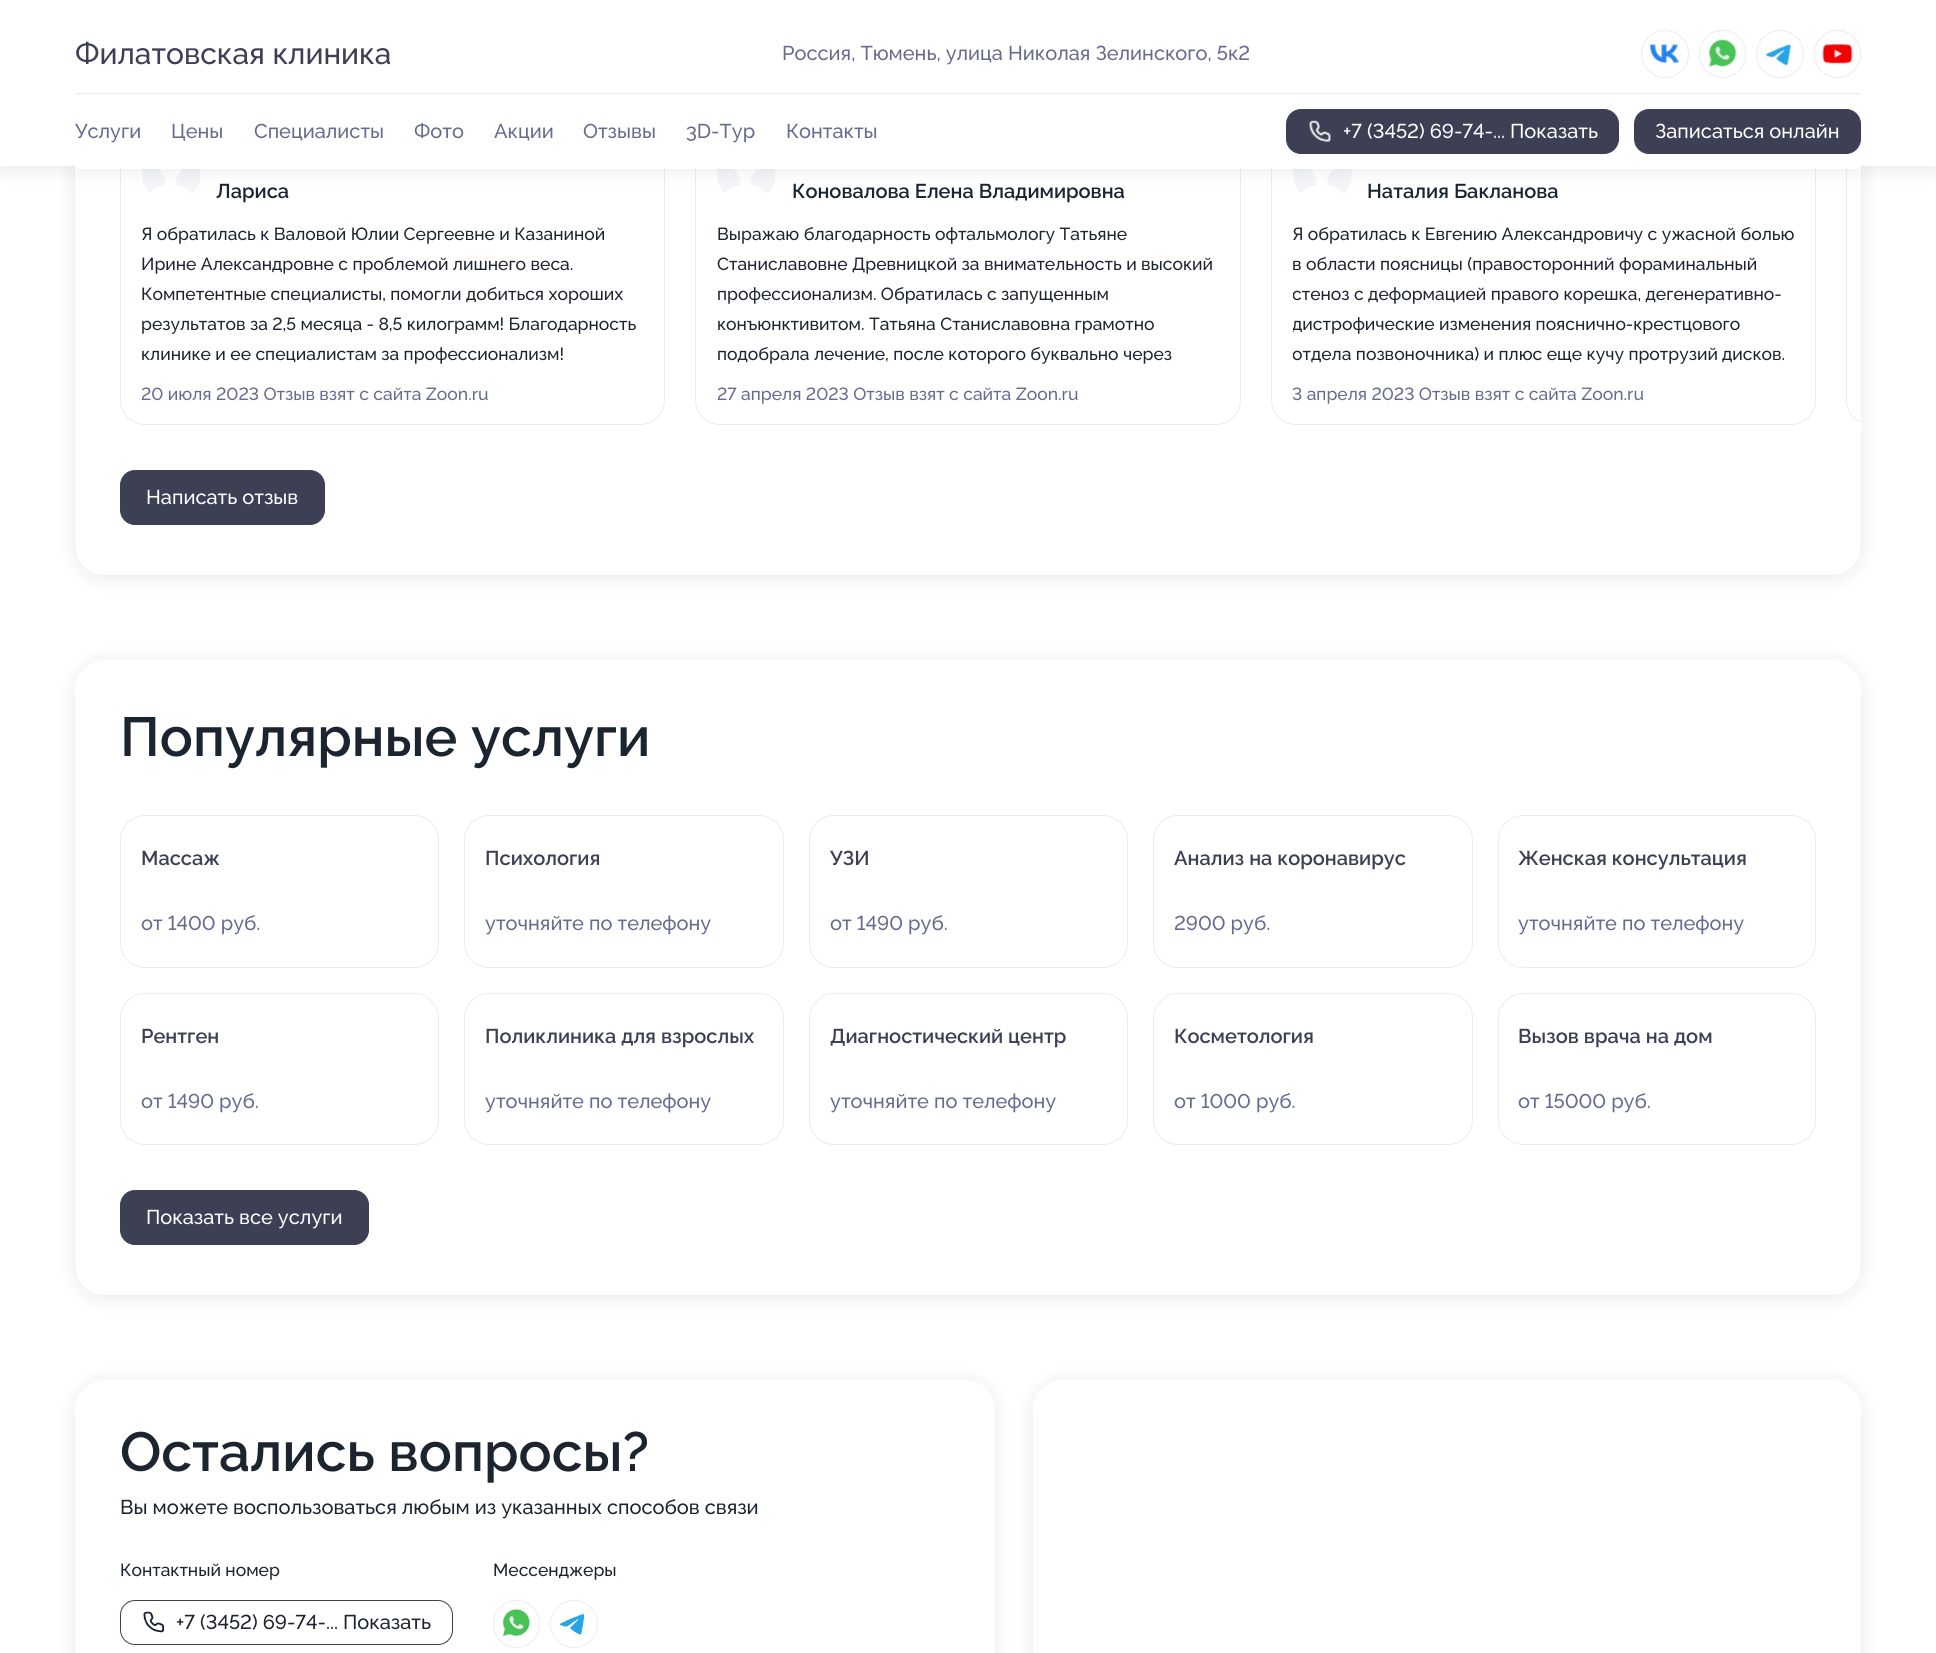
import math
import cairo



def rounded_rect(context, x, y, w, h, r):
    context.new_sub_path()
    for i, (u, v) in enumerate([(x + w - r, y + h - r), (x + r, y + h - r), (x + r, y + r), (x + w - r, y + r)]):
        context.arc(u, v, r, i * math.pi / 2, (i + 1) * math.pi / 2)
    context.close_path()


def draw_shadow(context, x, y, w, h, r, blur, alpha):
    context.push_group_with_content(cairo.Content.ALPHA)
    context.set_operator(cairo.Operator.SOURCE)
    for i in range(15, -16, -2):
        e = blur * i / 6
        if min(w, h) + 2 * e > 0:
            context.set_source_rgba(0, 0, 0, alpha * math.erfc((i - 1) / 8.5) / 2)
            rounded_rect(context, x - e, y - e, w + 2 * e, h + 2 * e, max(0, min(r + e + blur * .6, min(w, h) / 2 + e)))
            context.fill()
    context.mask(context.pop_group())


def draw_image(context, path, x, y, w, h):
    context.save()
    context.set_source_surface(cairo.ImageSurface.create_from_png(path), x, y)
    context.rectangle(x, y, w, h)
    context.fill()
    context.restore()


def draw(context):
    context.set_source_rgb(1, 1, 1)
    context.paint()
    context.set_source_rgb(0, 0, 0)
    draw_shadow(context, 75, -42, 1786, 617, 30, 10, 0.05)
    draw_shadow(context, 75, -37, 1786, 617, 30, 10, 0.05)
    context.set_source_rgb(1, 1, 1)
    rounded_rect(context, 75, -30, 1786, 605, 30)
    context.fill()
    rounded_rect(context, 120.5, 113.5, 544, 311, 24.5)
    context.set_source_rgb(236 / 255, 236 / 255, 238 / 255)
    context.set_line_width(1)
    context.stroke()
    draw_image(context, "images/6.png", 142, 169, 59, 25)
    rounded_rect(context, 695.5, 113.5, 545, 311, 24.5)
    context.stroke()
    draw_image(context, "images/7.png", 717, 169, 59, 25)
    rounded_rect(context, 1271.5, 113.5, 544, 311, 24.5)
    context.stroke()
    draw_image(context, "images/8.png", 1293, 169, 59, 25)
    context.set_source_rgb(1, 1, 1)
    context.new_path()
    context.move_to(1871, 113)
    context.line_to(1861, 113)
    context.line_to(1861, 425)
    context.line_to(1871, 425)
    context.curve_to(1857, 425, 1846, 414, 1846, 400)
    context.line_to(1846, 138)
    context.curve_to(1846, 124, 1857, 113, 1871, 113)
    context.close_path()
    context.fill()
    context.set_source_rgb(236 / 255, 236 / 255, 238 / 255)
    context.new_path()
    context.move_to(1861, 115)
    context.curve_to(1852, 119, 1846, 128, 1846, 138)
    context.line_to(1846, 400)
    context.curve_to(1846, 410, 1852, 419, 1861, 423)
    context.line_to(1861, 422)
    context.curve_to(1853, 418, 1847, 410, 1847, 400)
    context.line_to(1847, 138)
    context.curve_to(1847, 128, 1853, 120, 1861, 116)
    context.close_path()
    context.fill()
    context.set_source_rgb(0, 0, 0)
    draw_shadow(context, 0, 5, 1936, 166, 0, 10, 0.05)
    draw_shadow(context, 0, 0, 1936, 166, 0, 10, 0.05)
    context.set_source_rgb(1, 1, 1)
    context.rectangle(0, 0, 1936, 166)
    context.fill()
    context.set_source_rgb(236 / 255, 236 / 255, 238 / 255)
    context.rectangle(75, 93, 1786, 1)
    context.fill()
    context.arc(1665, 54, 23.5, 0, 2 * math.pi)
    context.stroke()
    draw_image(context, "images/1.png", 1649, 44, 30, 20)
    rounded_rect(context, 1699.5, 30.5, 46, 47, 23)
    context.stroke()
    draw_image(context, "images/2.png", 1708, 39, 29, 28)
    context.arc(1780, 54, 23.5, 0, 2 * math.pi)
    context.stroke()
    draw_image(context, "images/3.png", 1765, 44, 26, 22)
    rounded_rect(context, 1814.5, 30.5, 46, 47, 23)
    context.stroke()
    draw_image(context, "images/4.png", 1822, 44, 31, 20)
    context.set_source_rgb(1, 1, 1)
    context.rectangle(75, 166, 1786, 3)
    context.fill()
    context.set_source_rgb(61 / 255, 63 / 255, 85 / 255)
    rounded_rect(context, 1286.5, 109.5, 332, 44, 14.5)
    context.fill_preserve()
    context.stroke()
    draw_image(context, "images/5.png", 1309, 120, 22, 22)
    rounded_rect(context, 1634.5, 109.5, 226, 44, 14.5)
    context.fill_preserve()
    context.stroke()
    rounded_rect(context, 120.5, 470.5, 204, 54, 14.5)
    context.fill_preserve()
    context.stroke()
    context.set_source_rgb(0, 0, 0)
    draw_shadow(context, 75, 660, 1786, 635, 30, 10, 0.05)
    draw_shadow(context, 75, 665, 1786, 635, 30, 10, 0.05)
    context.set_source_rgb(1, 1, 1)
    rounded_rect(context, 75, 660, 1786, 635, 30)
    context.fill()
    rounded_rect(context, 120.5, 815.5, 318, 152, 24.5)
    context.set_source_rgb(236 / 255, 236 / 255, 238 / 255)
    context.stroke()
    rounded_rect(context, 464.5, 815.5, 319, 152, 24.5)
    context.stroke()
    rounded_rect(context, 809.5, 815.5, 318, 152, 24.5)
    context.stroke()
    rounded_rect(context, 1153.5, 815.5, 319, 152, 24.5)
    context.stroke()
    rounded_rect(context, 1498.5, 815.5, 317, 152, 24.5)
    context.stroke()
    rounded_rect(context, 120.5, 993.5, 318, 151, 24.5)
    context.stroke()
    rounded_rect(context, 464.5, 993.5, 319, 151, 24.5)
    context.stroke()
    rounded_rect(context, 809.5, 993.5, 318, 151, 24.5)
    context.stroke()
    rounded_rect(context, 1153.5, 993.5, 319, 151, 24.5)
    context.stroke()
    rounded_rect(context, 1498.5, 993.5, 317, 151, 24.5)
    context.stroke()
    context.set_source_rgb(61 / 255, 63 / 255, 85 / 255)
    rounded_rect(context, 120.5, 1190.5, 248, 54, 14.5)
    context.fill_preserve()
    context.stroke()
    context.set_source_rgb(0, 0, 0)
    draw_shadow(context, 75, 1380, 920, 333, 30, 10, 0.05)
    draw_shadow(context, 75, 1385, 920, 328, 30, 10, 0.05)
    context.set_source_rgb(1, 1, 1)
    rounded_rect(context, 75, 1380, 920, 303, 30)
    context.fill()
    rounded_rect(context, 120.5, 1600.5, 332, 44, 14.5)
    context.set_source_rgb(61 / 255, 63 / 255, 85 / 255)
    context.stroke()
    draw_image(context, "images/9.png", 143, 1611, 22, 22)
    rounded_rect(context, 493.5, 1600.5, 46, 47, 23)
    context.set_source_rgb(236 / 255, 236 / 255, 238 / 255)
    context.stroke()
    draw_image(context, "images/10.png", 502, 1609, 28, 27)
    context.arc(574, 1624, 23.5, 0, 2 * math.pi)
    context.stroke()
    draw_image(context, "images/11.png", 559, 1614, 26, 21)
    context.set_source_rgb(0, 0, 0)
    draw_shadow(context, 1033, 1380, 828, 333, 30, 10, 0.05)
    draw_shadow(context, 1033, 1385, 828, 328, 30, 10, 0.05)
    context.set_source_rgb(1, 1, 1)
    rounded_rect(context, 1033, 1380, 828, 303, 30)
    context.fill()
    context.select_font_face("Raleway Medium")
    context.set_font_size(30)
    context.set_source_rgb(61 / 255, 63 / 255, 85 / 255)
    context.move_to(75, 64)
    context.show_text("Филатовская клиника")
    context.select_font_face("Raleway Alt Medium")
    context.set_font_size(20)
    context.set_source_rgb(103 / 255, 107 / 255, 143 / 255)
    context.move_to(782, 60)
    context.show_text("Россия, Тюмень, улица Николая Зелинского, 5к2")
    context.select_font_face("Raleway Medium")
    context.move_to(75, 138)
    context.show_text("Услуги")
    context.move_to(171, 138)
    context.show_text("Цены")
    context.move_to(254, 138)
    context.show_text("Специалисты")
    context.move_to(414, 138)
    context.show_text("Фото")
    context.move_to(494, 138)
    context.show_text("Акции")
    context.move_to(583, 138)
    context.show_text("Отзывы")
    context.move_to(686, 138)
    context.show_text("3D-Тур")
    context.move_to(786, 138)
    context.show_text("Контакты")
    context.select_font_face("Raleway Alt Medium")
    context.set_source_rgb(1, 1, 1)
    context.move_to(1343, 138)
    context.show_text("+7 (3452) 69-74-...")
    context.select_font_face("Raleway Medium")
    context.move_to(1510, 138)
    context.show_text("Показать")
    context.move_to(1655, 138)
    context.show_text("Записаться онлайн")
    context.select_font_face("Raleway SemiBold")
    context.set_source_rgb(28 / 255, 36 / 255, 47 / 255)
    context.move_to(216, 198)
    context.show_text("Лариса")
    context.select_font_face("Raleway Medium")
    context.set_font_size(17.5)
    context.move_to(141, 240)
    context.show_text("Я обратилась к Валовой Юлии Сергеевне и Казаниной")
    context.move_to(141, 270)
    context.show_text("Ирине Александровне с проблемой лишнего веса.")
    context.move_to(141, 300)
    context.show_text("Компетентные специалисты, помогли добиться хороших")
    context.select_font_face("Raleway Alt Medium")
    context.move_to(141, 330)
    context.show_text("результатов за 2,5 месяца - 8,5 килограмм! Благодарность")
    context.select_font_face("Raleway Medium")
    context.move_to(141, 360)
    context.show_text("клинике и ее специалистам за профессионализм!")
    context.select_font_face("Raleway Alt Medium")
    context.set_source_rgb(103 / 255, 107 / 255, 143 / 255)
    context.move_to(141, 400)
    context.show_text("20 июля 2023 Отзыв взят с сайта Zoon.ru")
    context.select_font_face("Raleway SemiBold")
    context.set_font_size(20)
    context.set_source_rgb(28 / 255, 36 / 255, 47 / 255)
    context.move_to(792, 198)
    context.show_text("Коновалова Елена Владимировна")
    context.select_font_face("Raleway Medium")
    context.set_font_size(17.5)
    context.move_to(717, 240)
    context.show_text("Выражаю благодарность офтальмологу Татьяне")
    context.move_to(717, 270)
    context.show_text("Станиславовне Древницкой за внимательность и высокий")
    context.move_to(717, 300)
    context.show_text("профессионализм. Обратилась с запущенным")
    context.move_to(717, 330)
    context.show_text("конъюнктивитом. Татьяна Станиславовна грамотно")
    context.move_to(717, 360)
    context.show_text("подобрала лечение, после которого буквально через")
    context.select_font_face("Raleway Alt Medium")
    context.set_source_rgb(103 / 255, 107 / 255, 143 / 255)
    context.move_to(717, 400)
    context.show_text("27 апреля 2023 Отзыв взят с сайта Zoon.ru")
    context.select_font_face("Raleway SemiBold")
    context.set_font_size(20)
    context.set_source_rgb(28 / 255, 36 / 255, 47 / 255)
    context.move_to(1367, 198)
    context.show_text("Наталия Бакланова")
    context.select_font_face("Raleway Medium")
    context.set_font_size(17.5)
    context.move_to(1292, 240)
    context.show_text("Я обратилась к Евгению Александровичу с ужасной болью")
    context.move_to(1292, 270)
    context.show_text("в области поясницы (правосторонний фораминальный")
    context.save()
    context.rectangle(1293, 219, 502, 150)
    context.clip()
    context.move_to(1292, 300)
    context.show_text("стеноз с деформацией правого корешка, дегенеративно-")
    context.move_to(1292, 330)
    context.show_text("дистрофические изменения пояснично-крестцового")
    context.move_to(1292, 360)
    context.show_text("отдела позвоночника) и плюс еще кучу протрузий")
    context.restore()
    context.move_to(1722, 360)
    context.show_text("дисков.")
    context.select_font_face("Raleway Alt Medium")
    context.set_source_rgb(103 / 255, 107 / 255, 143 / 255)
    context.move_to(1292, 400)
    context.show_text("3 апреля 2023 Отзыв взят с сайта Zoon.ru")
    context.select_font_face("Raleway Medium")
    context.set_font_size(20)
    context.set_source_rgb(1, 1, 1)
    context.move_to(146, 504)
    context.show_text("Написать отзыв")
    context.select_font_face("Raleway SemiBold")
    context.set_font_size(55)
    context.set_source_rgb(28 / 255, 36 / 255, 47 / 255)
    context.move_to(120, 756)
    context.show_text("Популярные услуги")
    context.set_font_size(20)
    context.set_source_rgb(61 / 255, 63 / 255, 85 / 255)
    context.move_to(141, 865)
    context.show_text("Массаж")
    context.select_font_face("Raleway Alt Medium")
    context.set_source_rgb(103 / 255, 107 / 255, 143 / 255)
    context.move_to(141, 930)
    context.show_text("от 1400 руб.")
    context.select_font_face("Raleway SemiBold")
    context.set_source_rgb(61 / 255, 63 / 255, 85 / 255)
    context.move_to(485, 865)
    context.show_text("Психология")
    context.select_font_face("Raleway Medium")
    context.set_source_rgb(103 / 255, 107 / 255, 143 / 255)
    context.move_to(485, 930)
    context.show_text("уточняйте по телефону")
    context.select_font_face("Raleway SemiBold")
    context.set_source_rgb(61 / 255, 63 / 255, 85 / 255)
    context.move_to(830, 865)
    context.show_text("УЗИ")
    context.select_font_face("Raleway Alt Medium")
    context.set_source_rgb(103 / 255, 107 / 255, 143 / 255)
    context.move_to(830, 930)
    context.show_text("от 1490 руб.")
    context.select_font_face("Raleway SemiBold")
    context.set_source_rgb(61 / 255, 63 / 255, 85 / 255)
    context.move_to(1174, 865)
    context.show_text("Анализ на коронавирус")
    context.select_font_face("Raleway Alt Medium")
    context.set_source_rgb(103 / 255, 107 / 255, 143 / 255)
    context.move_to(1174, 930)
    context.show_text("2900 руб.")
    context.select_font_face("Raleway SemiBold")
    context.set_source_rgb(61 / 255, 63 / 255, 85 / 255)
    context.move_to(1518, 865)
    context.show_text("Женская консультация")
    context.select_font_face("Raleway Medium")
    context.set_source_rgb(103 / 255, 107 / 255, 143 / 255)
    context.move_to(1518, 930)
    context.show_text("уточняйте по телефону")
    context.select_font_face("Raleway SemiBold")
    context.set_source_rgb(61 / 255, 63 / 255, 85 / 255)
    context.move_to(141, 1043)
    context.show_text("Рентген")
    context.select_font_face("Raleway Alt Medium")
    context.set_source_rgb(103 / 255, 107 / 255, 143 / 255)
    context.move_to(141, 1108)
    context.show_text("от 1490 руб.")
    context.select_font_face("Raleway SemiBold")
    context.set_source_rgb(61 / 255, 63 / 255, 85 / 255)
    context.move_to(485, 1043)
    context.show_text("Поликлиника для взрослых")
    context.select_font_face("Raleway Medium")
    context.set_source_rgb(103 / 255, 107 / 255, 143 / 255)
    context.move_to(485, 1108)
    context.show_text("уточняйте по телефону")
    context.select_font_face("Raleway SemiBold")
    context.set_source_rgb(61 / 255, 63 / 255, 85 / 255)
    context.move_to(830, 1043)
    context.show_text("Диагностический центр")
    context.select_font_face("Raleway Medium")
    context.set_source_rgb(103 / 255, 107 / 255, 143 / 255)
    context.move_to(830, 1108)
    context.show_text("уточняйте по телефону")
    context.select_font_face("Raleway SemiBold")
    context.set_source_rgb(61 / 255, 63 / 255, 85 / 255)
    context.move_to(1174, 1043)
    context.show_text("Косметология")
    context.select_font_face("Raleway Alt Medium")
    context.set_source_rgb(103 / 255, 107 / 255, 143 / 255)
    context.move_to(1174, 1108)
    context.show_text("от 1000 руб.")
    context.select_font_face("Raleway SemiBold")
    context.set_source_rgb(61 / 255, 63 / 255, 85 / 255)
    context.move_to(1518, 1043)
    context.show_text("Вызов врача на дом")
    context.select_font_face("Raleway Alt Medium")
    context.set_source_rgb(103 / 255, 107 / 255, 143 / 255)
    context.move_to(1518, 1108)
    context.show_text("от 15000 руб.")
    context.select_font_face("Raleway Medium")
    context.set_source_rgb(1, 1, 1)
    context.move_to(146, 1224)
    context.show_text("Показать все услуги")
    context.select_font_face("Raleway SemiBold")
    context.set_font_size(55)
    context.set_source_rgb(28 / 255, 36 / 255, 47 / 255)
    context.move_to(120, 1471)
    context.show_text("Остались вопросы?")
    context.select_font_face("Raleway Medium")
    context.set_font_size(20)
    context.move_to(120, 1514)
    context.show_text("Вы можете воспользоваться любым из указанных способов связи")
    context.set_font_size(17.5)
    context.move_to(120, 1576)
    context.show_text("Контактный номер")
    context.select_font_face("Raleway Alt Medium")
    context.set_font_size(20)
    context.move_to(176, 1629)
    context.show_text("+7 (3452) 69-74-...")
    context.select_font_face("Raleway Medium")
    context.move_to(343, 1629)
    context.show_text("Показать")
    context.set_font_size(17.5)
    context.move_to(493, 1576)
    context.show_text("Мессенджеры")


surface = cairo.ImageSurface(cairo.Format.RGB24, 1936, 1653)
context = cairo.Context(surface)
options = cairo.FontOptions()
options.set_hint_metrics(cairo.HintMetrics.OFF)
options.set_hint_style(cairo.HintStyle.NONE)
context.set_font_options(options)
context.set_miter_limit(4)
draw(context)
surface.write_to_png("out.png")
